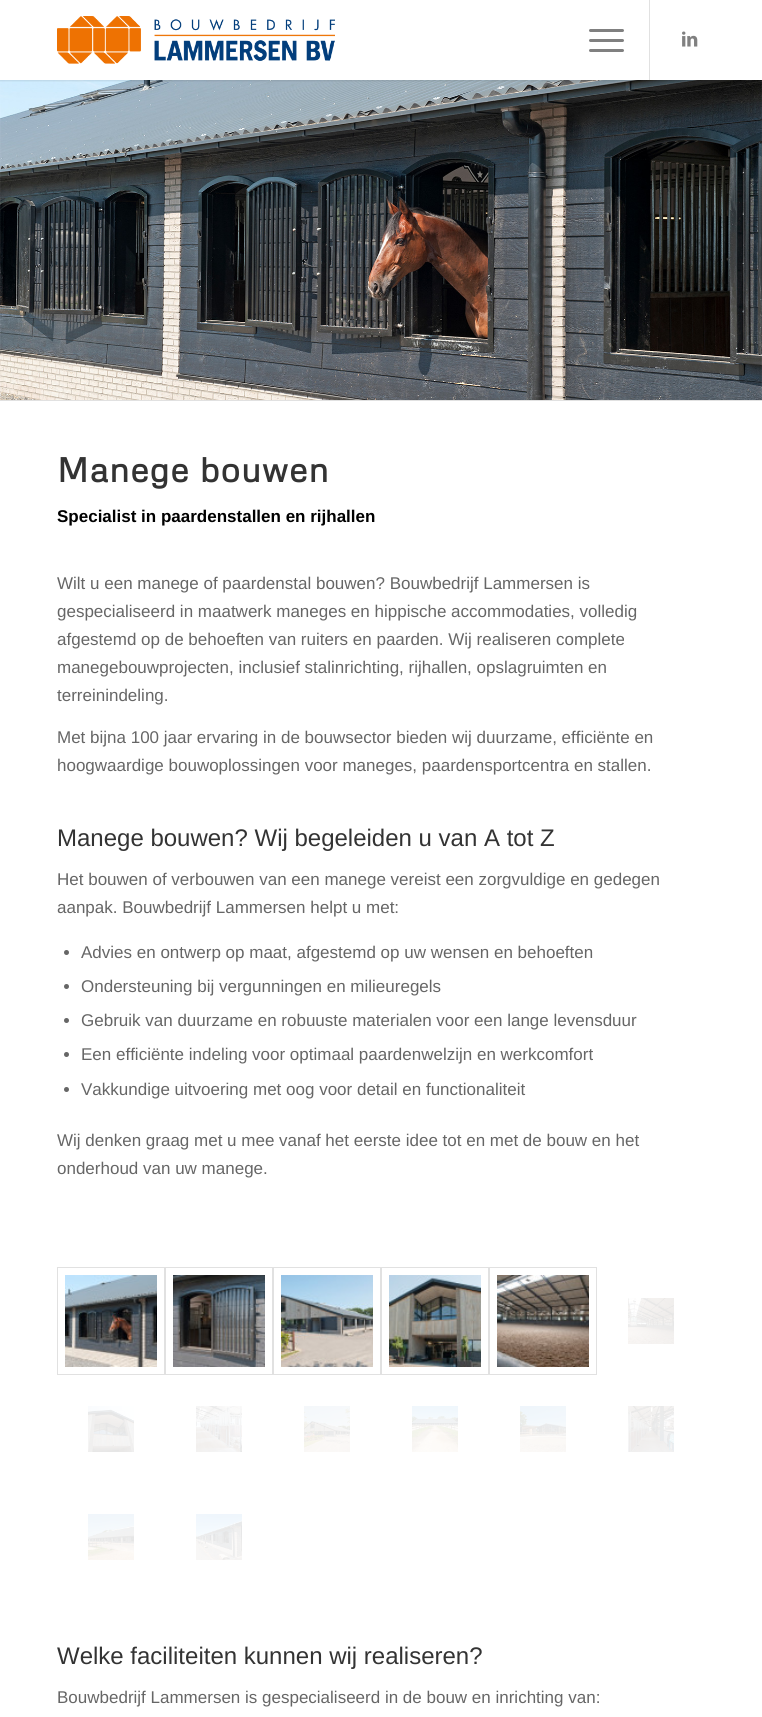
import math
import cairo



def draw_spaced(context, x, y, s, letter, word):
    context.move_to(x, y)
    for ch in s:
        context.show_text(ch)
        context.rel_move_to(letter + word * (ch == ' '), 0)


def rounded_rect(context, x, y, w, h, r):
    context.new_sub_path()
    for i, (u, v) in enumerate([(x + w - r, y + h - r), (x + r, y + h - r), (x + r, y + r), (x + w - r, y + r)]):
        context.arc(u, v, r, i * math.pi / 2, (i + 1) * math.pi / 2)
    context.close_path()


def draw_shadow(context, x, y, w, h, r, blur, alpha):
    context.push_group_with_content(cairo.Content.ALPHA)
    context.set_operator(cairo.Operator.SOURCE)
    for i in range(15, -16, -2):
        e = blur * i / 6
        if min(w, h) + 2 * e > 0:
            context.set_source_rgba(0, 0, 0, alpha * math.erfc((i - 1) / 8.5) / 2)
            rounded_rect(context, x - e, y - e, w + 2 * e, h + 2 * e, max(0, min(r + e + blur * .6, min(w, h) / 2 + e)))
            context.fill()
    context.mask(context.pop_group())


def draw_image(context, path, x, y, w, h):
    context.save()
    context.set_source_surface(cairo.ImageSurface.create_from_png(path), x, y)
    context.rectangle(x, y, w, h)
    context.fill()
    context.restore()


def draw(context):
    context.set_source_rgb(1, 1, 1)
    context.paint()
    draw_image(context, "images/3.png", 0, 80, 762, 320)
    context.save()
    context.rectangle(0, 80, 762, 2)
    context.clip()
    context.set_source_rgb(0, 0, 0)
    draw_shadow(context, -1, -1, 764, 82, 0, 1, 0.1)
    context.restore()
    draw_image(context, "images/1.png", 57, 16, 278, 48)
    context.set_source_rgb(225 / 255, 225 / 255, 225 / 255)
    context.rectangle(649, 0, 1, 80)
    context.fill()
    context.set_source_rgb(128 / 255, 128 / 255, 128 / 255)
    rounded_rect(context, 589, 39, 35, 3, 1.5)
    context.fill()
    rounded_rect(context, 589, 29, 35, 3, 1.5)
    context.fill()
    rounded_rect(context, 589, 49, 35, 3, 1.5)
    context.fill()
    draw_image(context, "images/2.png", 682, 31, 16, 16)
    context.set_source_rgb(225 / 255, 225 / 255, 225 / 255)
    context.rectangle(0, 400, 762, 1)
    context.fill()
    context.set_source_rgb(102 / 255, 102 / 255, 102 / 255)
    context.arc(66.5, 952.5, 2.5, 0, 2 * math.pi)
    context.fill()
    context.arc(66.5, 986.5, 2.5, 0, 2 * math.pi)
    context.fill()
    context.arc(66.5, 1020.5, 2.5, 0, 2 * math.pi)
    context.fill()
    context.arc(66.5, 1054.5, 2.5, 0, 2 * math.pi)
    context.fill()
    context.arc(66.5, 1089.5, 2.5, 0, 2 * math.pi)
    context.fill()
    context.rectangle(57.5, 1267.5, 107, 107)
    context.set_source_rgb(225 / 255, 225 / 255, 225 / 255)
    context.set_line_width(1)
    context.stroke()
    draw_image(context, "images/4.png", 65, 1275, 92, 92)
    context.rectangle(165.5, 1267.5, 107, 107)
    context.stroke()
    draw_image(context, "images/5.png", 173, 1275, 92, 92)
    context.rectangle(273.5, 1267.5, 107, 107)
    context.stroke()
    draw_image(context, "images/6.png", 281, 1275, 92, 92)
    context.rectangle(381.5, 1267.5, 107, 107)
    context.stroke()
    draw_image(context, "images/7.png", 389, 1275, 92, 92)
    context.rectangle(489.5, 1267.5, 107, 107)
    context.stroke()
    draw_image(context, "images/8.png", 497, 1275, 92, 92)
    draw_image(context, "images/9.png", 628, 1298, 46, 46)
    draw_image(context, "images/10.png", 88, 1406, 46, 46)
    draw_image(context, "images/11.png", 196, 1406, 46, 46)
    draw_image(context, "images/12.png", 304, 1406, 46, 46)
    draw_image(context, "images/13.png", 412, 1406, 46, 46)
    draw_image(context, "images/14.png", 520, 1406, 46, 46)
    draw_image(context, "images/15.png", 628, 1406, 46, 46)
    draw_image(context, "images/16.png", 88, 1514, 46, 46)
    draw_image(context, "images/17.png", 196, 1514, 46, 46)
    context.select_font_face("Metrophobic", cairo.FontSlant.NORMAL, cairo.FontWeight.BOLD)
    context.set_font_size(34)
    context.set_source_rgb(51 / 255, 51 / 255, 51 / 255)
    draw_spaced(context, 57, 482, "Manege bouwen", 1, 0)
    context.select_font_face("Liberation Sans", cairo.FontSlant.NORMAL, cairo.FontWeight.BOLD)
    context.set_font_size(17)
    context.set_source_rgb(0, 0, 0)
    context.move_to(57, 522)
    context.show_text("Specialist in paardenstallen en rijhallen")
    context.select_font_face("Liberation Sans")
    context.set_source_rgb(102 / 255, 102 / 255, 102 / 255)
    context.move_to(57, 589)
    context.show_text("Wilt u een manege of paardenstal bouwen? Bouwbedrijf Lammersen is")
    context.move_to(57, 617)
    context.show_text("gespecialiseerd in maatwerk maneges en hippische accommodaties, volledig")
    context.move_to(57, 645)
    context.show_text("afgestemd op de behoeften van ruiters en paarden. Wij realiseren complete")
    context.move_to(57, 673)
    context.show_text("manegebouwprojecten, inclusief stalinrichting, rijhallen, opslagruimten en")
    context.move_to(57, 701)
    context.show_text("terreinindeling.")
    context.move_to(57, 743)
    context.show_text("Met bijna 100 jaar ervaring in de bouwsector bieden wij duurzame, efficiënte en")
    context.move_to(57, 771)
    context.show_text("hoogwaardige bouwoplossingen voor maneges, paardensportcentra en stallen.")
    context.set_font_size(24)
    context.set_source_rgb(51 / 255, 51 / 255, 51 / 255)
    context.move_to(57, 846)
    context.show_text("Manege bouwen? Wij begeleiden u van A tot Z")
    context.set_font_size(17)
    context.set_source_rgb(102 / 255, 102 / 255, 102 / 255)
    context.move_to(57, 885)
    context.show_text("Het bouwen of verbouwen van een manege vereist een zorgvuldige en gedegen")
    context.move_to(57, 913)
    context.show_text("aanpak. Bouwbedrijf Lammersen helpt u met:")
    context.move_to(81, 958)
    context.show_text("Advies en ontwerp op maat, afgestemd op uw wensen en behoeften")
    context.move_to(81, 992)
    context.show_text("Ondersteuning bij vergunningen en milieuregels")
    context.move_to(81, 1026)
    context.show_text("Gebruik van duurzame en robuuste materialen voor een lange levensduur")
    context.move_to(81, 1060)
    context.show_text("Een efficiënte indeling voor optimaal paardenwelzijn en werkcomfort")
    context.move_to(81, 1095)
    context.show_text("Vakkundige uitvoering met oog voor detail en functionaliteit")
    context.move_to(57, 1146)
    context.show_text("Wij denken graag met u mee vanaf het eerste idee tot en met de bouw en het")
    context.move_to(57, 1174)
    context.show_text("onderhoud van uw manege.")
    context.set_font_size(24)
    context.set_source_rgb(51 / 255, 51 / 255, 51 / 255)
    context.move_to(57, 1664)
    context.show_text("Welke faciliteiten kunnen wij realiseren?")
    context.set_font_size(17)
    context.set_source_rgb(102 / 255, 102 / 255, 102 / 255)
    context.move_to(57, 1703)
    context.show_text("Bouwbedrijf Lammersen is gespecialiseerd in de bouw en inrichting van:")


surface = cairo.ImageSurface(cairo.Format.RGB24, 762, 1717)
context = cairo.Context(surface)
options = cairo.FontOptions()
options.set_hint_metrics(cairo.HintMetrics.OFF)
options.set_hint_style(cairo.HintStyle.NONE)
context.set_font_options(options)
context.set_miter_limit(4)
draw(context)
surface.write_to_png("out.png")
